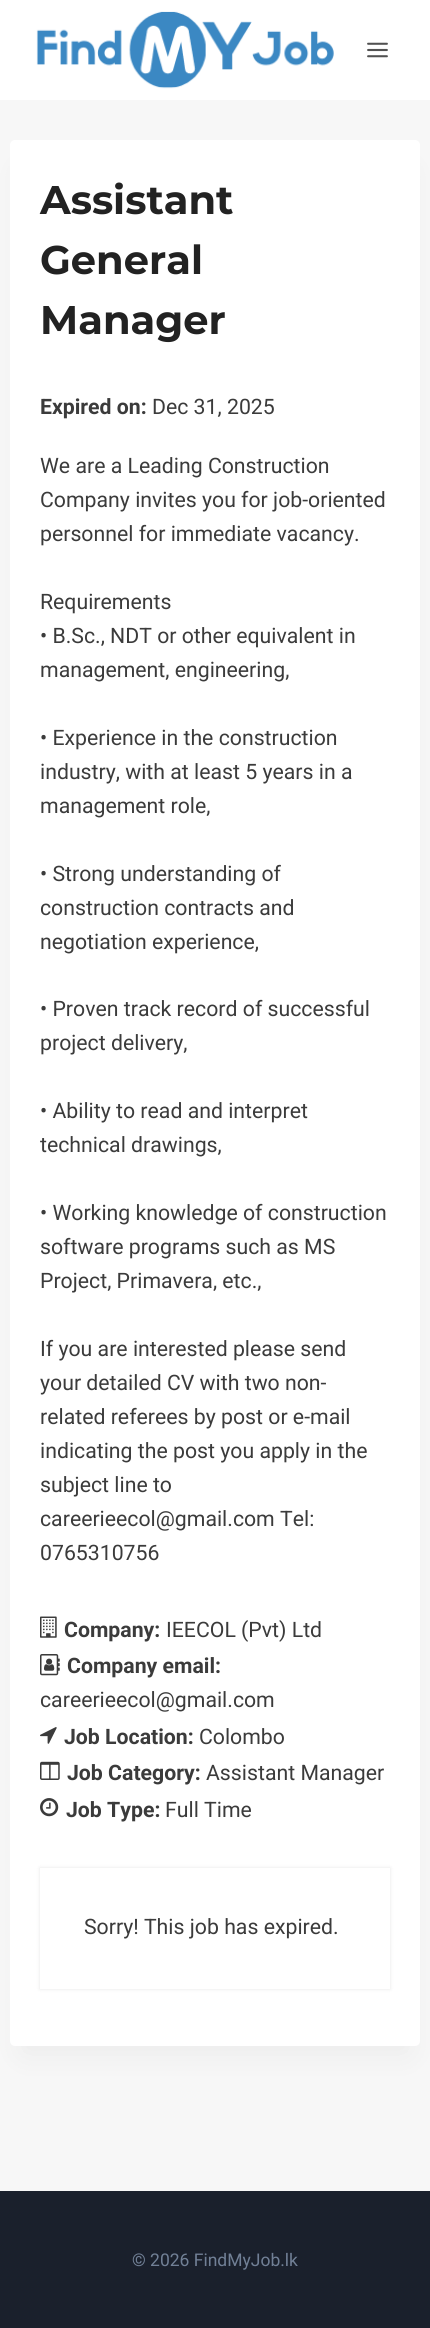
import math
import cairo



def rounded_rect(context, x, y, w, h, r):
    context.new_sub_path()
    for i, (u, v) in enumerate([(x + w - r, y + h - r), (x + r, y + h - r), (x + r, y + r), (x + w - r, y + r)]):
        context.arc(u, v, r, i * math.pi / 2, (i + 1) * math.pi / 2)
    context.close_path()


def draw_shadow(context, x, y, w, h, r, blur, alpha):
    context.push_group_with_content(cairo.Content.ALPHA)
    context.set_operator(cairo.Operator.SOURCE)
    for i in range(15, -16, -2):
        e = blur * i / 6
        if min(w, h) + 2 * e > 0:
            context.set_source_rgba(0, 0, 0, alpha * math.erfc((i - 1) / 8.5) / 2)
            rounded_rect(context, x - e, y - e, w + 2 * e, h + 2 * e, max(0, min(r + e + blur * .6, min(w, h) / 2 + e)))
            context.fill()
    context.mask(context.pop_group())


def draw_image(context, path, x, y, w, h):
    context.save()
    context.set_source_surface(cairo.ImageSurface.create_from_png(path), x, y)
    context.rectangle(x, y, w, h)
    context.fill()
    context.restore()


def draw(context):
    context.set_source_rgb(247 / 255, 247 / 255, 247 / 255)
    context.paint()
    context.set_source_rgb(1, 1, 1)
    context.rectangle(0, 0, 430, 100)
    context.fill()
    draw_image(context, "images/1.png", 36, 11, 298, 78)
    draw_image(context, "images/2.png", 367, 42, 21, 16)
    context.set_source_rgb(0, 0, 0)
    draw_shadow(context, 23, 171, 385, 1882, 0, 15.5, 0.05)
    context.set_source_rgb(1, 1, 1)
    rounded_rect(context, 10, 140, 410, 1906, 5)
    context.fill()
    draw_image(context, "images/3.png", 40, 1616, 17, 22)
    draw_image(context, "images/4.png", 40, 1654, 20, 22)
    draw_image(context, "images/5.png", 40, 1727, 17, 17)
    draw_image(context, "images/6.png", 40, 1761, 20, 19)
    draw_image(context, "images/7.png", 40, 1798, 19, 19)
    context.set_source_rgb(0, 0, 0)
    draw_shadow(context, 40, 1868, 350, 121, 0, 2, 0.1)
    context.set_source_rgb(1, 1, 1)
    context.rectangle(40, 1868, 350, 121)
    context.fill()
    context.set_source_rgb(26 / 255, 32 / 255, 44 / 255)
    context.rectangle(0, 2191, 430, 137)
    context.fill()
    context.select_font_face("Montserrat", cairo.FontSlant.NORMAL, cairo.FontWeight.BOLD)
    context.set_font_size(40)
    context.set_source_rgb(34 / 255, 34 / 255, 34 / 255)
    context.move_to(40, 214)
    context.show_text("Assistant")
    context.move_to(40, 274)
    context.show_text("General")
    context.move_to(40, 334)
    context.show_text("Manager")
    context.select_font_face("Roboto", cairo.FontSlant.NORMAL, cairo.FontWeight.BOLD)
    context.set_font_size(21.25)
    context.set_source_rgb(59 / 255, 59 / 255, 59 / 255)
    context.move_to(40, 414)
    context.show_text("Expired on:")
    context.select_font_face("Roboto")
    context.move_to(152, 414)
    context.show_text("Dec 31, 2025")
    context.move_to(40, 473)
    context.show_text("We are a Leading Construction")
    context.move_to(40, 507)
    context.show_text("Company invites you for job-oriented")
    context.move_to(40, 541)
    context.show_text("personnel for immediate vacancy.")
    context.move_to(40, 609)
    context.show_text("Requirements")
    context.move_to(40, 643)
    context.show_text("• B.Sc., NDT or other equivalent in")
    context.move_to(40, 677)
    context.show_text("management, engineering,")
    context.move_to(40, 745)
    context.show_text("• Experience in the construction")
    context.move_to(40, 779)
    context.show_text("industry, with at least 5 years in a")
    context.move_to(40, 813)
    context.show_text("management role,")
    context.move_to(40, 881)
    context.show_text("• Strong understanding of")
    context.move_to(40, 915)
    context.show_text("construction contracts and")
    context.move_to(40, 949)
    context.show_text("negotiation experience,")
    context.move_to(40, 1016)
    context.show_text("• Proven track record of successful")
    context.move_to(40, 1050)
    context.show_text("project delivery,")
    context.move_to(40, 1118)
    context.show_text("• Ability to read and interpret")
    context.move_to(40, 1152)
    context.show_text("technical drawings,")
    context.move_to(40, 1220)
    context.show_text("• Working knowledge of construction")
    context.move_to(40, 1254)
    context.show_text("software programs such as MS")
    context.move_to(40, 1288)
    context.show_text("Project, Primavera, etc.,")
    context.move_to(40, 1356)
    context.show_text("If you are interested please send")
    context.move_to(40, 1390)
    context.show_text("your detailed CV with two non-")
    context.move_to(40, 1424)
    context.show_text("related referees by post or e-mail")
    context.move_to(40, 1458)
    context.show_text("indicating the post you apply in the")
    context.move_to(40, 1492)
    context.show_text("subject line to")
    context.move_to(40, 1526)
    context.show_text("careerieecol@gmail.com Tel:")
    context.move_to(40, 1560)
    context.show_text("0765310756")
    context.select_font_face("Roboto", cairo.FontSlant.NORMAL, cairo.FontWeight.BOLD)
    context.move_to(64, 1637)
    context.show_text("Company:")
    context.select_font_face("Roboto")
    context.move_to(166, 1637)
    context.show_text("IEECOL (Pvt) Ltd")
    context.select_font_face("Roboto", cairo.FontSlant.NORMAL, cairo.FontWeight.BOLD)
    context.move_to(67, 1673)
    context.show_text("Company email:")
    context.select_font_face("Roboto")
    context.move_to(40, 1707)
    context.show_text("careerieecol@gmail.com")
    context.select_font_face("Roboto", cairo.FontSlant.NORMAL, cairo.FontWeight.BOLD)
    context.move_to(64, 1744)
    context.show_text("Job Location:")
    context.select_font_face("Roboto")
    context.move_to(199, 1744)
    context.show_text("Colombo")
    context.select_font_face("Roboto", cairo.FontSlant.NORMAL, cairo.FontWeight.BOLD)
    context.move_to(67, 1780)
    context.show_text("Job Category:")
    context.select_font_face("Roboto")
    context.move_to(206, 1780)
    context.show_text("Assistant Manager")
    context.select_font_face("Roboto", cairo.FontSlant.NORMAL, cairo.FontWeight.BOLD)
    context.move_to(66, 1817)
    context.show_text("Job Type:")
    context.select_font_face("Roboto")
    context.move_to(165, 1817)
    context.show_text("Full Time")
    context.move_to(84, 1934)
    context.show_text("Sorry! This job has expired.")
    context.set_font_size(17.5)
    context.set_source_rgb(113 / 255, 128 / 255, 150 / 255)
    context.move_to(132, 2266)
    context.show_text("© 2026 FindMyJob.lk")


surface = cairo.ImageSurface(cairo.Format.RGB24, 430, 2328)
context = cairo.Context(surface)
options = cairo.FontOptions()
options.set_hint_metrics(cairo.HintMetrics.OFF)
options.set_hint_style(cairo.HintStyle.NONE)
context.set_font_options(options)
context.set_miter_limit(4)
draw(context)
surface.write_to_png("out.png")
